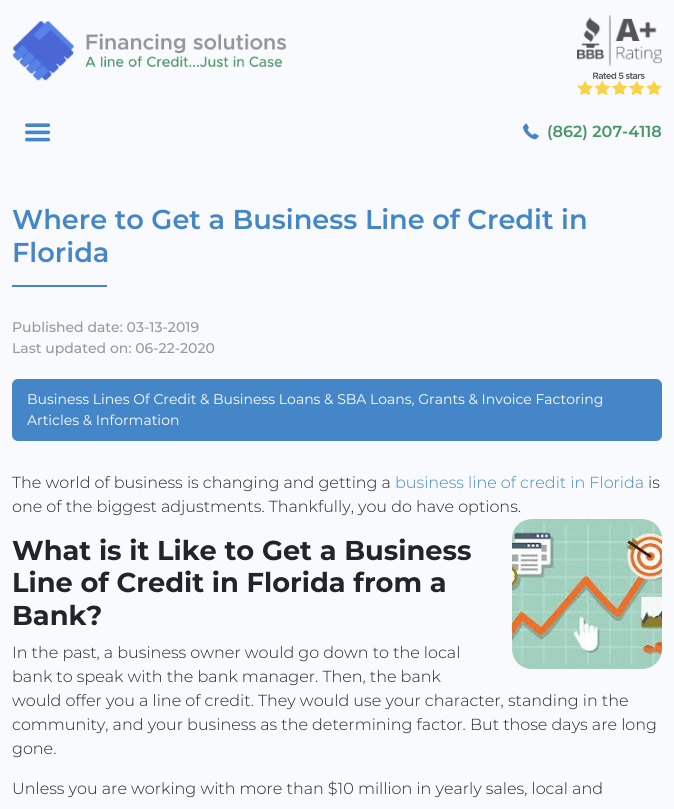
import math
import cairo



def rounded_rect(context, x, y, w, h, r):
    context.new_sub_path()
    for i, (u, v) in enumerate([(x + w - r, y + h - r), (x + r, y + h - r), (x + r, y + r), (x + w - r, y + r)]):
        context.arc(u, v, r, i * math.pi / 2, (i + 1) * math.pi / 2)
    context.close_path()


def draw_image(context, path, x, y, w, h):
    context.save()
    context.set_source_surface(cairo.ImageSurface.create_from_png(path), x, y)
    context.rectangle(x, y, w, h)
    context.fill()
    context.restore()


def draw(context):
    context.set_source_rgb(249 / 255, 250 / 255, 253 / 255)
    context.paint()
    draw_image(context, "images/1.png", 12, 20, 275, 61)
    draw_image(context, "images/2.png", 577, 15, 85, 51)
    draw_image(context, "images/3.png", 577, 72, 85, 23)
    draw_image(context, "images/4.png", 25, 123, 26, 19)
    draw_image(context, "images/5.png", 523, 123, 16, 17)
    context.set_source_rgb(68 / 255, 134 / 255, 200 / 255)
    context.rectangle(12, 285, 95, 2)
    context.fill()
    rounded_rect(context, 12, 379, 650, 62, 6)
    context.fill()
    draw_image(context, "images/6.png", 512, 519, 150, 150)
    context.select_font_face("Montserrat SemiBold")
    context.set_font_size(16)
    context.set_source_rgb(72 / 255, 149 / 255, 103 / 255)
    context.move_to(547, 137)
    context.show_text("(862) 207-4118")
    context.set_font_size(27.25)
    context.set_source_rgb(68 / 255, 134 / 255, 200 / 255)
    context.move_to(12, 229)
    context.show_text("Where to Get a Business Line of Credit in")
    context.move_to(12, 262)
    context.show_text("Florida")
    context.select_font_face("Montserrat Medium")
    context.set_font_size(14)
    context.set_source_rgb(153 / 255, 153 / 255, 153 / 255)
    context.move_to(12, 332)
    context.show_text("Published date: 03-13-2019")
    context.move_to(12, 353)
    context.show_text("Last updated on: 06-22-2020")
    context.select_font_face("Montserrat")
    context.set_source_rgb(1, 1, 1)
    context.move_to(27, 404)
    context.show_text("Business Lines Of Credit & Business Loans & SBA Loans, Grants & Invoice Factoring")
    context.move_to(27, 425)
    context.show_text("Articles & Information")
    context.select_font_face("Montserrat Light")
    context.set_font_size(16)
    context.set_source_rgb(33 / 255, 37 / 255, 41 / 255)
    context.move_to(12, 488)
    context.show_text("The world of business is changing and getting a")
    context.set_source_rgb(68 / 255, 134 / 255, 200 / 255)
    context.move_to(395, 488)
    context.show_text("business line of credit in Florida")
    context.set_source_rgb(33 / 255, 37 / 255, 41 / 255)
    context.move_to(648, 488)
    context.show_text("is")
    context.move_to(12, 512)
    context.show_text("one of the biggest adjustments. Thankfully, you do have options.")
    context.select_font_face("Montserrat", cairo.FontSlant.NORMAL, cairo.FontWeight.BOLD)
    context.set_font_size(27.25)
    context.move_to(12, 560)
    context.show_text("What is it Like to Get a Business")
    context.move_to(12, 592)
    context.show_text("Line of Credit in Florida from a")
    context.move_to(12, 625)
    context.show_text("Bank?")
    context.select_font_face("Montserrat Light")
    context.set_font_size(16)
    context.move_to(12, 658)
    context.show_text("In the past, a business owner would go down to the local")
    context.move_to(12, 682)
    context.show_text("bank to speak with the bank manager. Then, the bank")
    context.move_to(12, 706)
    context.show_text("would offer you a line of credit. They would use your character, standing in the")
    context.move_to(12, 730)
    context.show_text("community, and your business as the determining factor. But those days are long")
    context.move_to(12, 754)
    context.show_text("gone.")
    context.move_to(12, 794)
    context.show_text("Unless you are working with more than $10 million in yearly sales, local and")


surface = cairo.ImageSurface(cairo.Format.RGB24, 674, 809)
context = cairo.Context(surface)
options = cairo.FontOptions()
options.set_hint_metrics(cairo.HintMetrics.OFF)
options.set_hint_style(cairo.HintStyle.NONE)
context.set_font_options(options)
context.set_miter_limit(4)
draw(context)
surface.write_to_png("out.png")
